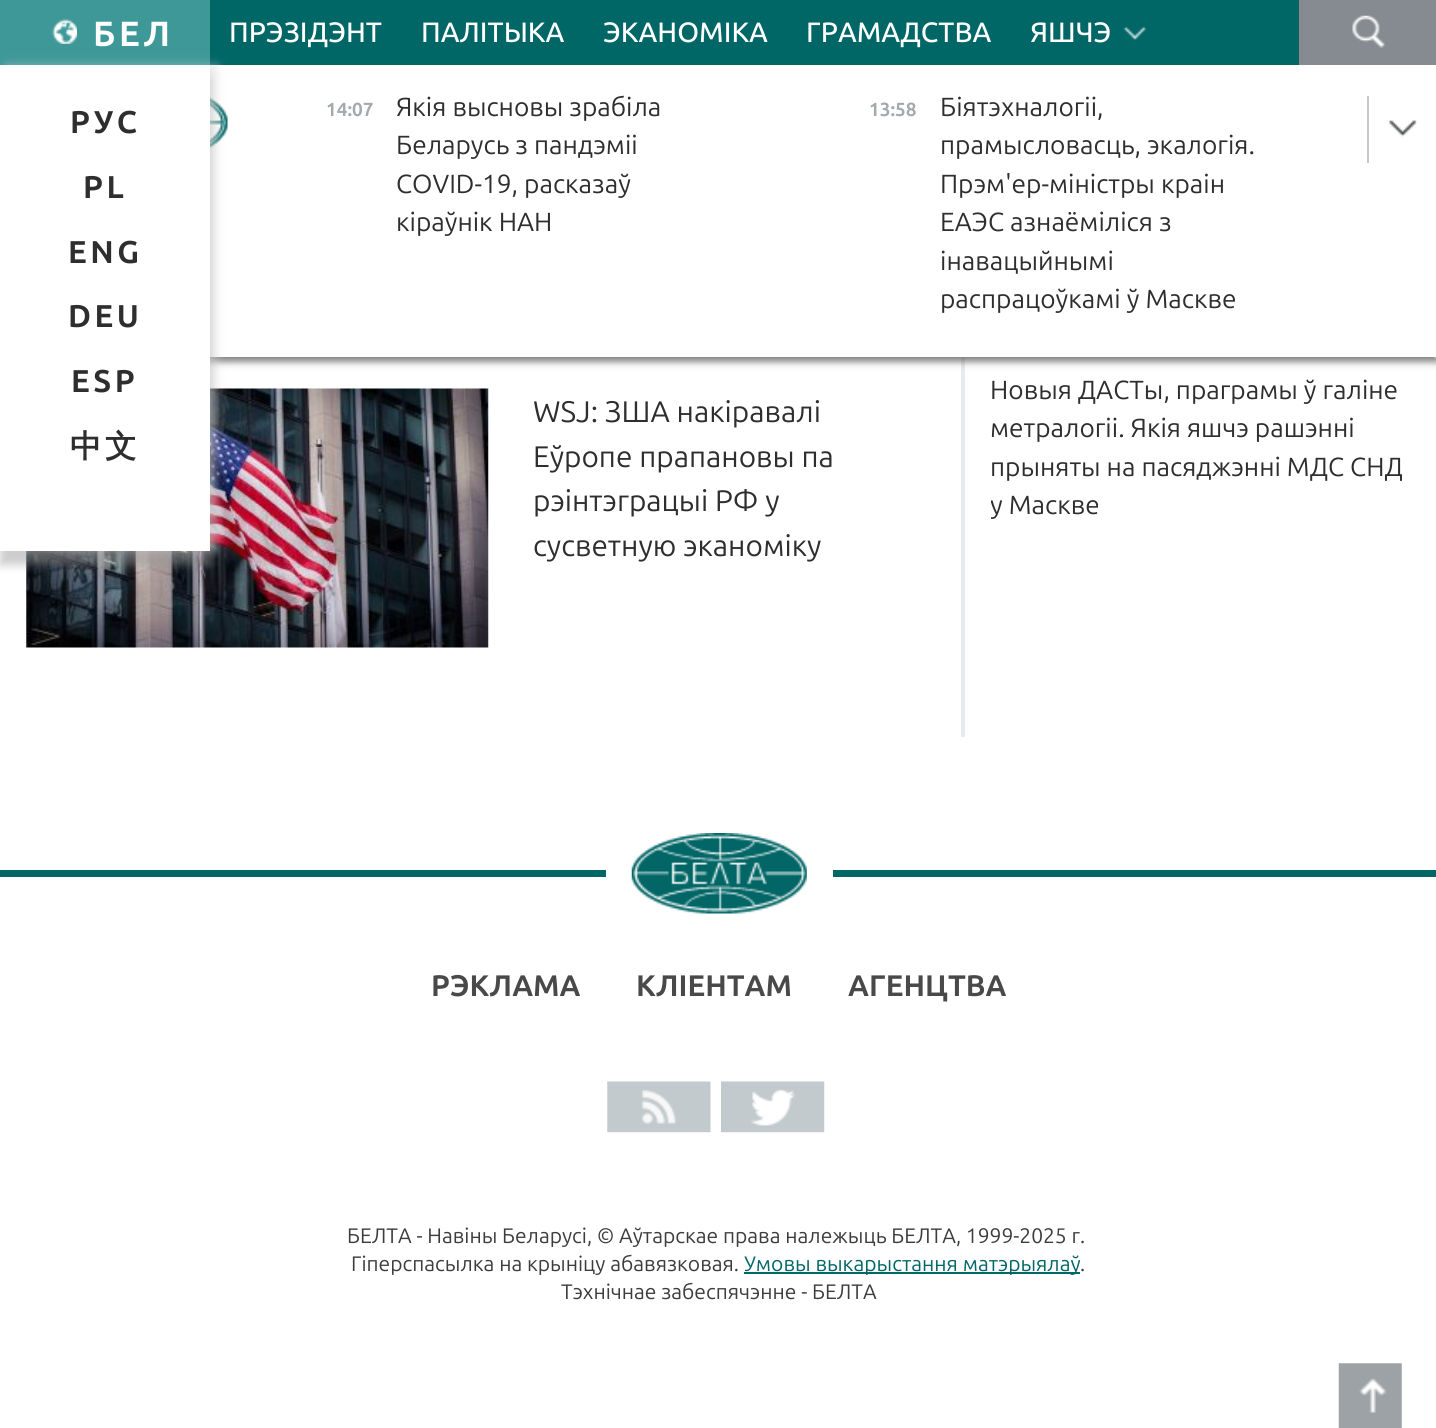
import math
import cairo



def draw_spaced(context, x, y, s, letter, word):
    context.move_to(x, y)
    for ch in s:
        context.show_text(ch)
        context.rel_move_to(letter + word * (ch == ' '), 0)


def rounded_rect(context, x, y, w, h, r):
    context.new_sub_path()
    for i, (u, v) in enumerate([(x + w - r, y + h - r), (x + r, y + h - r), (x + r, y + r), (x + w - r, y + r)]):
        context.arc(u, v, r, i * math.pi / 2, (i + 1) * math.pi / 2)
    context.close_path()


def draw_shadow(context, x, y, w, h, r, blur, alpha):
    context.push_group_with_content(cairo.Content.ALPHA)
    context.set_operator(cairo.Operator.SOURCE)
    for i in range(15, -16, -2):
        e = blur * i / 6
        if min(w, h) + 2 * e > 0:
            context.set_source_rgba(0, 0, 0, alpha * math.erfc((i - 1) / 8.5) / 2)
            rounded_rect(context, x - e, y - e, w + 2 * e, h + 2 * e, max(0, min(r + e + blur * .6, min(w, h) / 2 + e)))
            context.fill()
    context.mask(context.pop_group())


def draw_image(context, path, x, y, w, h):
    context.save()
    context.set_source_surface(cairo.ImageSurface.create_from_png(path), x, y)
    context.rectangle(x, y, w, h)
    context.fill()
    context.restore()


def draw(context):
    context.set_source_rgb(1, 1, 1)
    context.paint()
    context.set_source_rgb(230 / 255, 234 / 255, 237 / 255)
    context.rectangle(961, 357, 4, 380)
    context.fill()
    context.set_source_rgb(100 / 255, 100 / 255, 100 / 255)
    draw_shadow(context, 0, 70, 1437, 292, 0, 3.5, 0.8)
    context.set_source_rgb(0, 102 / 255, 102 / 255)
    context.rectangle(210, 0, 1089, 65)
    context.fill()
    context.set_source_rgb(63 / 255, 152 / 255, 152 / 255)
    context.rectangle(0, 0, 210, 65)
    context.fill()
    draw_image(context, "images/1.png", 52, 19, 25, 25)
    context.set_source_rgb(1, 1, 1)
    context.rectangle(210, 65, 1226, 292)
    context.fill()
    draw_image(context, "images/4.png", 210, 97, 18, 52)
    draw_image(context, "images/6.png", 26, 388, 463, 260)
    context.set_source_rgb(152 / 255, 152 / 255, 152 / 255)
    draw_shadow(context, 0, 79, 210, 486, 0, 4.5, 0.5)
    context.set_source_rgb(212 / 255, 212 / 255, 212 / 255)
    draw_shadow(context, 7, 65, 210, 486, 0, 4.5, 0.5)
    context.set_source_rgb(1, 1, 1)
    context.rectangle(0, 65, 210, 486)
    context.fill()
    draw_image(context, "images/2.png", 1123, 26, 24, 15)
    context.set_source_rgb(133 / 255, 139 / 255, 144 / 255)
    context.rectangle(1299, 0, 137, 65)
    context.fill()
    draw_image(context, "images/3.png", 1352, 15, 33, 33)
    draw_image(context, "images/5.png", 1389, 120, 28, 17)
    context.set_source_rgb(200 / 255, 200 / 255, 200 / 255)
    context.rectangle(1367, 96, 2, 67)
    context.fill()
    context.set_source_rgb(0, 102 / 255, 102 / 255)
    context.rectangle(0, 870, 1436, 7)
    context.fill()
    context.set_source_rgb(1, 1, 1)
    context.rectangle(606, 870, 227, 7)
    context.fill()
    draw_image(context, "images/7.png", 631, 833, 176, 81)
    draw_image(context, "images/8.png", 607, 1081, 104, 52)
    draw_image(context, "images/9.png", 721, 1081, 104, 52)
    context.set_source_rgb(0, 102 / 255, 102 / 255)
    context.rectangle(744, 1272, 336, 2)
    context.fill()
    draw_image(context, "images/10.png", 1338, 1363, 64, 65)
    context.select_font_face("Ubuntu", cairo.FontSlant.NORMAL, cairo.FontWeight.BOLD)
    context.set_font_size(35)
    context.set_source_rgb(1, 1, 1)
    draw_spaced(context, 93, 46, "БЕЛ", 3.5, 0)
    context.set_font_size(31.5)
    context.set_source_rgb(46 / 255, 46 / 255, 46 / 255)
    draw_spaced(context, 70, 133, "РУС", 3.5, 0)
    draw_spaced(context, 83, 198, "PL", 3.5, 0)
    draw_spaced(context, 68, 263, "ENG", 3.5, 0)
    draw_spaced(context, 68, 327, "DEU", 3.5, 0)
    draw_spaced(context, 71, 392, "ESP", 3.5, 0)
    context.select_font_face("WenQuanYi Zen Hei", cairo.FontSlant.NORMAL, cairo.FontWeight.BOLD)
    draw_spaced(context, 70, 457, "中文", 3.5, 0)
    context.select_font_face("Ubuntu Medium")
    context.set_font_size(28)
    context.set_source_rgb(1, 1, 1)
    context.move_to(229, 42)
    context.show_text("ПРЭЗІДЭНТ")
    context.move_to(421, 42)
    context.show_text("ПАЛІТЫКА")
    context.move_to(603, 42)
    context.show_text("ЭКАНОМІКА")
    context.move_to(806, 42)
    context.show_text("ГРАМАДСТВА")
    context.move_to(1030, 42)
    context.show_text("ЯШЧЭ")
    context.select_font_face("Ubuntu", cairo.FontSlant.NORMAL, cairo.FontWeight.BOLD)
    context.set_font_size(19)
    context.set_source_rgb(163 / 255, 169 / 255, 173 / 255)
    context.move_to(326, 116)
    context.show_text("14:07")
    context.select_font_face("Ubuntu")
    context.set_font_size(26.25)
    context.set_source_rgb(46 / 255, 46 / 255, 46 / 255)
    context.move_to(396, 116)
    context.show_text("Якія высновы зрабіла")
    context.move_to(396, 154)
    context.show_text("Беларусь з пандэміі")
    context.move_to(396, 193)
    context.show_text("COVID-19, расказаў")
    context.move_to(396, 231)
    context.show_text("кіраўнік НАН")
    context.select_font_face("Ubuntu", cairo.FontSlant.NORMAL, cairo.FontWeight.BOLD)
    context.set_font_size(19)
    context.set_source_rgb(163 / 255, 169 / 255, 173 / 255)
    context.move_to(869, 116)
    context.show_text("13:58")
    context.select_font_face("Ubuntu")
    context.set_font_size(26.25)
    context.set_source_rgb(46 / 255, 46 / 255, 46 / 255)
    context.move_to(940, 116)
    context.show_text("Біятэхналогіі,")
    context.move_to(940, 154)
    context.show_text("прамысловасць, экалогія.")
    context.move_to(940, 193)
    context.show_text("Прэм'ер-міністры краін")
    context.move_to(940, 231)
    context.show_text("ЕАЭС азнаёміліся з")
    context.move_to(940, 270)
    context.show_text("інавацыйнымі")
    context.move_to(940, 308)
    context.show_text("распрацоўкамі ў Маскве")
    context.set_font_size(29.75)
    context.move_to(533, 422)
    context.show_text("WSJ: ЗША накіравалі")
    context.move_to(533, 467)
    context.show_text("Еўропе прапановы па")
    context.move_to(533, 511)
    context.show_text("рэінтэграцыі РФ у")
    context.move_to(533, 556)
    context.show_text("сусветную эканоміку")
    context.set_font_size(26.25)
    context.move_to(990, 399)
    context.show_text("Новыя ДАСТы, праграмы ў галіне")
    context.move_to(990, 437)
    context.show_text("метралогіі. Якія яшчэ рашэнні")
    context.move_to(990, 476)
    context.show_text("прыняты на пасяджэнні МДС СНД")
    context.save()
    context.rectangle(991, 0, 418, 676)
    context.clip()
    context.move_to(990, 514)
    context.show_text("у Маскве")
    context.restore()
    context.select_font_face("Ubuntu", cairo.FontSlant.NORMAL, cairo.FontWeight.BOLD)
    context.set_font_size(29.75)
    context.set_source_rgb(73 / 255, 73 / 255, 73 / 255)
    context.move_to(431, 996)
    context.show_text("РЭКЛАМА")
    context.move_to(636, 996)
    context.show_text("КЛІЕНТАМ")
    context.move_to(848, 996)
    context.show_text("АГЕНЦТВА")
    context.select_font_face("Ubuntu")
    context.set_font_size(21)
    context.set_source_rgb(60 / 255, 60 / 255, 60 / 255)
    context.move_to(347, 1243)
    context.show_text("БЕЛТА - Навiны Беларусi, © Аўтарскае права належыць БЕЛТА, 1999-2025 г.")
    context.move_to(351, 1271)
    context.show_text("Гіперспасылка на крыніцу абавязковая.")
    context.set_source_rgb(0, 102 / 255, 102 / 255)
    context.move_to(744, 1271)
    context.show_text("Умовы выкарыстання матэрыялаў")
    context.set_source_rgb(60 / 255, 60 / 255, 60 / 255)
    context.move_to(1080, 1271)
    context.show_text(".")
    context.move_to(561, 1299)
    context.show_text("Тэхнiчнае забеспячэнне - БЕЛТА")


surface = cairo.ImageSurface(cairo.Format.RGB24, 1436, 1428)
context = cairo.Context(surface)
options = cairo.FontOptions()
options.set_hint_metrics(cairo.HintMetrics.OFF)
options.set_hint_style(cairo.HintStyle.NONE)
context.set_font_options(options)
context.set_miter_limit(4)
draw(context)
surface.write_to_png("out.png")
